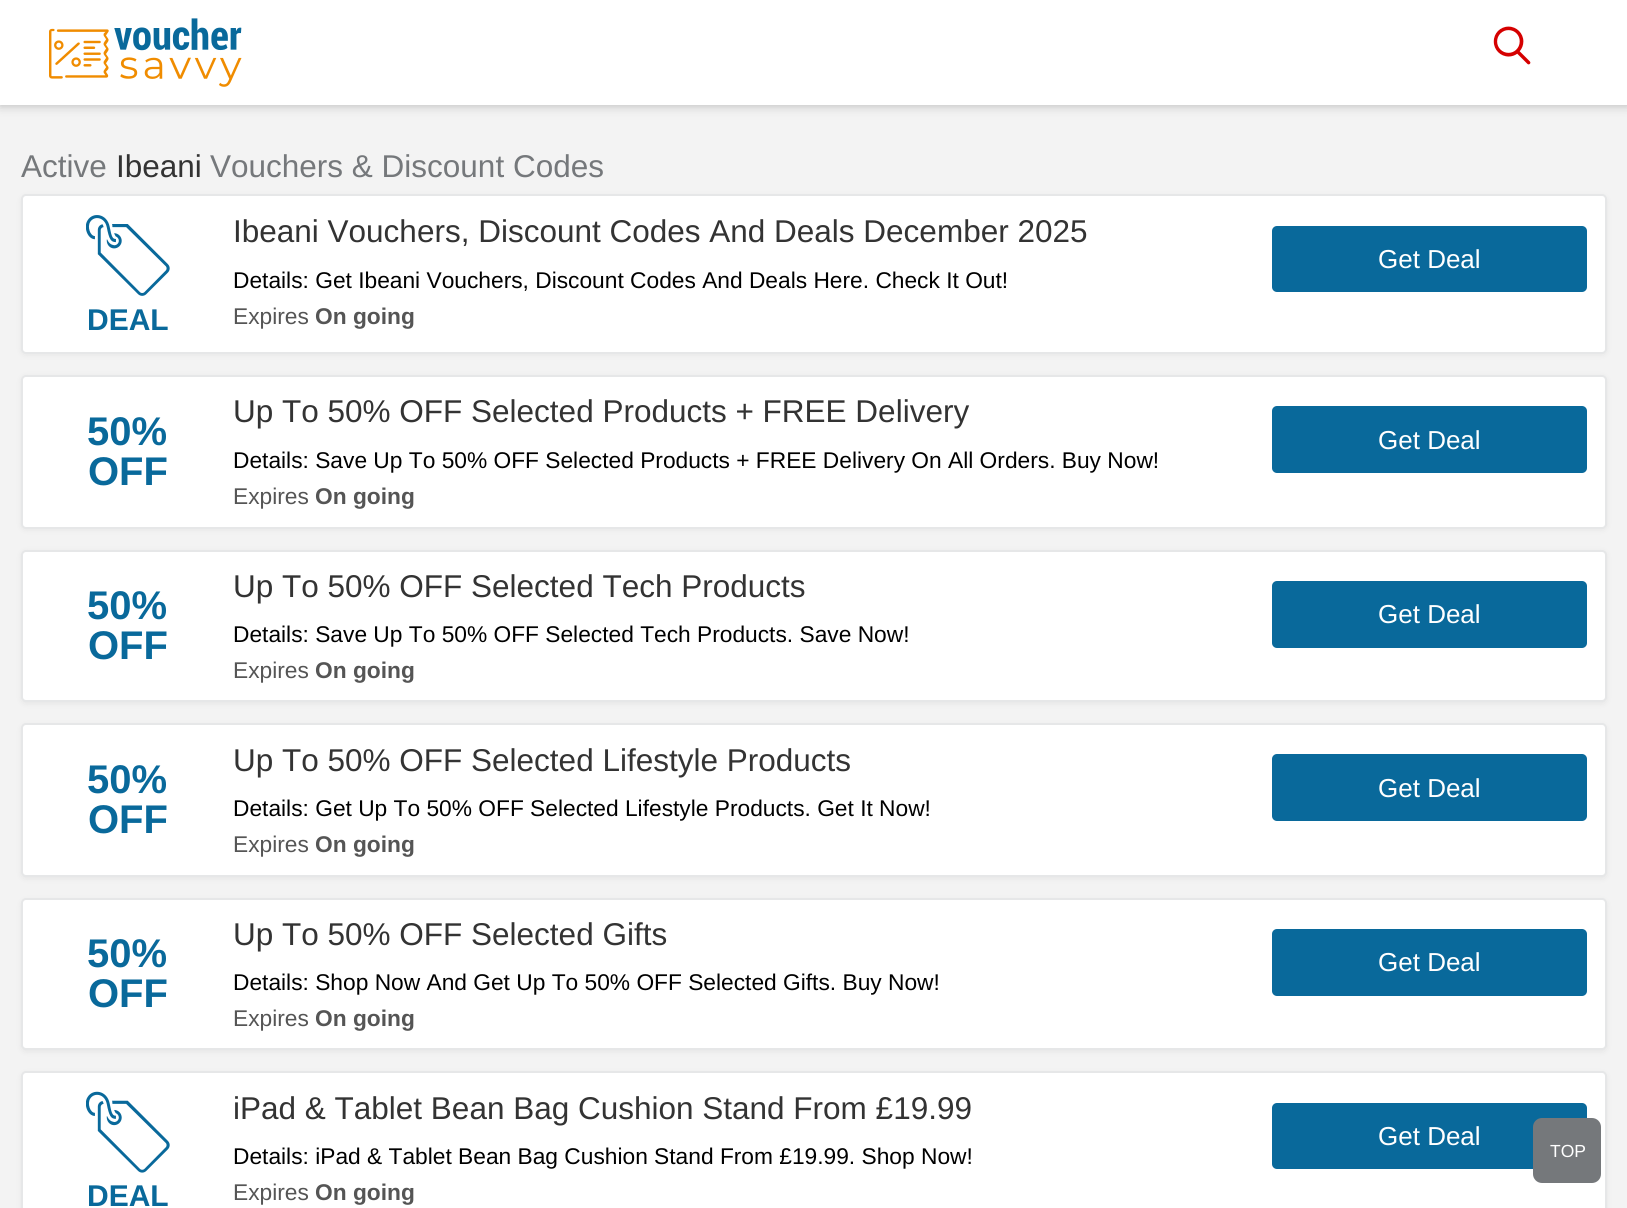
import math
import cairo



def rounded_rect(context, x, y, w, h, r):
    context.new_sub_path()
    for i, (u, v) in enumerate([(x + w - r, y + h - r), (x + r, y + h - r), (x + r, y + r), (x + w - r, y + r)]):
        context.arc(u, v, r, i * math.pi / 2, (i + 1) * math.pi / 2)
    context.close_path()


def draw_shadow(context, x, y, w, h, r, blur, alpha):
    context.push_group_with_content(cairo.Content.ALPHA)
    context.set_operator(cairo.Operator.SOURCE)
    for i in range(15, -16, -2):
        e = blur * i / 6
        if min(w, h) + 2 * e > 0:
            context.set_source_rgba(0, 0, 0, alpha * math.erfc((i - 1) / 8.5) / 2)
            rounded_rect(context, x - e, y - e, w + 2 * e, h + 2 * e, max(0, min(r + e + blur * .6, min(w, h) / 2 + e)))
            context.fill()
    context.mask(context.pop_group())


def draw_image(context, path, x, y, w, h):
    context.save()
    context.set_source_surface(cairo.ImageSurface.create_from_png(path), x, y)
    context.rectangle(x, y, w, h)
    context.fill()
    context.restore()


def draw(context):
    context.set_source_rgb(243 / 255, 243 / 255, 243 / 255)
    context.paint()
    context.set_source_rgb(11 / 255, 11 / 255, 11 / 255)
    draw_shadow(context, 0, 2, 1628, 105, 0, 4.5, 0.2)
    context.set_source_rgb(1, 1, 1)
    context.rectangle(0, 0, 1627, 105)
    context.fill()
    draw_image(context, "images/1.png", 49, 18, 193, 69)
    draw_image(context, "images/2.png", 1493, 26, 38, 39)
    context.set_source_rgb(111 / 255, 111 / 255, 111 / 255)
    draw_shadow(context, 21, 196, 1586, 159, 5, 2.5, 0.1)
    context.set_source_rgb(1, 1, 1)
    rounded_rect(context, 22, 195, 1584, 158, 4)
    context.fill_preserve()
    context.set_source_rgb(230 / 255, 231 / 255, 232 / 255)
    context.stroke()
    draw_image(context, "images/3.png", 86, 215, 84, 81)
    context.set_source_rgb(9 / 255, 105 / 255, 155 / 255)
    rounded_rect(context, 1272, 226, 315, 66, 5)
    context.fill()
    context.set_source_rgb(111 / 255, 111 / 255, 111 / 255)
    draw_shadow(context, 21, 376, 1586, 154, 5, 2.5, 0.1)
    context.set_source_rgb(1, 1, 1)
    rounded_rect(context, 22, 376, 1584, 152, 4)
    context.fill_preserve()
    context.set_source_rgb(230 / 255, 231 / 255, 232 / 255)
    context.stroke()
    context.set_source_rgb(9 / 255, 105 / 255, 155 / 255)
    rounded_rect(context, 1272, 406, 315, 67, 5)
    context.fill()
    context.set_source_rgb(111 / 255, 111 / 255, 111 / 255)
    draw_shadow(context, 21, 551, 1586, 153, 5, 2.5, 0.1)
    context.set_source_rgb(1, 1, 1)
    rounded_rect(context, 22, 551, 1584, 150, 4)
    context.fill_preserve()
    context.set_source_rgb(230 / 255, 231 / 255, 232 / 255)
    context.stroke()
    context.set_source_rgb(9 / 255, 105 / 255, 155 / 255)
    rounded_rect(context, 1272, 581, 315, 67, 5)
    context.fill()
    context.set_source_rgb(111 / 255, 111 / 255, 111 / 255)
    draw_shadow(context, 21, 725, 1586, 154, 5, 2.5, 0.1)
    context.set_source_rgb(1, 1, 1)
    rounded_rect(context, 22, 724, 1584, 152, 4)
    context.fill_preserve()
    context.set_source_rgb(230 / 255, 231 / 255, 232 / 255)
    context.stroke()
    context.set_source_rgb(9 / 255, 105 / 255, 155 / 255)
    rounded_rect(context, 1272, 754, 315, 67, 5)
    context.fill()
    context.set_source_rgb(111 / 255, 111 / 255, 111 / 255)
    draw_shadow(context, 21, 900, 1586, 152, 5, 2.5, 0.1)
    context.set_source_rgb(1, 1, 1)
    rounded_rect(context, 22, 899, 1584, 150, 4)
    context.fill_preserve()
    context.set_source_rgb(230 / 255, 231 / 255, 232 / 255)
    context.stroke()
    context.set_source_rgb(9 / 255, 105 / 255, 155 / 255)
    rounded_rect(context, 1272, 929, 315, 67, 5)
    context.fill()
    context.set_source_rgb(111 / 255, 111 / 255, 111 / 255)
    draw_shadow(context, 21, 1073, 1586, 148, 5, 2.5, 0.1)
    context.set_source_rgb(1, 1, 1)
    rounded_rect(context, 22, 1072, 1584, 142, 4)
    context.fill_preserve()
    context.set_source_rgb(230 / 255, 231 / 255, 232 / 255)
    context.stroke()
    draw_image(context, "images/4.png", 86, 1091, 84, 82)
    context.set_source_rgb(9 / 255, 105 / 255, 155 / 255)
    rounded_rect(context, 1272, 1103, 315, 66, 5)
    context.fill()
    context.set_source_rgb(117 / 255, 120 / 255, 123 / 255)
    rounded_rect(context, 1533, 1118, 68, 65, 9)
    context.fill()
    context.select_font_face("Liberation Sans")
    context.set_font_size(31.5)
    context.move_to(21, 177)
    context.show_text("Active")
    context.set_source_rgb(51 / 255, 51 / 255, 51 / 255)
    context.move_to(116, 177)
    context.show_text("Ibeani")
    context.set_source_rgb(117 / 255, 120 / 255, 123 / 255)
    context.move_to(210, 177)
    context.show_text("Vouchers & Discount Codes")
    context.select_font_face("Liberation Sans", cairo.FontSlant.NORMAL, cairo.FontWeight.BOLD)
    context.set_font_size(30)
    context.set_source_rgb(9 / 255, 105 / 255, 155 / 255)
    context.move_to(87, 330)
    context.show_text("DEAL")
    context.select_font_face("Liberation Sans")
    context.set_font_size(31.5)
    context.set_source_rgb(51 / 255, 51 / 255, 51 / 255)
    context.move_to(233, 242)
    context.show_text("Ibeani Vouchers, Discount Codes And Deals December 2025")
    context.set_font_size(22.75)
    context.set_source_rgb(0, 0, 0)
    context.move_to(233, 288)
    context.show_text("Details: Get Ibeani Vouchers, Discount Codes And Deals Here. Check It Out!")
    context.set_source_rgb(85 / 255, 85 / 255, 85 / 255)
    context.move_to(233, 324)
    context.show_text("Expires")
    context.select_font_face("Liberation Sans", cairo.FontSlant.NORMAL, cairo.FontWeight.BOLD)
    context.move_to(315, 324)
    context.show_text("On going")
    context.select_font_face("Liberation Sans")
    context.set_font_size(26)
    context.set_source_rgb(1, 1, 1)
    context.move_to(1378, 268)
    context.show_text("Get Deal")
    context.select_font_face("Liberation Sans", cairo.FontSlant.NORMAL, cairo.FontWeight.BOLD)
    context.set_font_size(40)
    context.set_source_rgb(9 / 255, 105 / 255, 155 / 255)
    context.move_to(87, 445)
    context.show_text("50%")
    context.move_to(88, 485)
    context.show_text("OFF")
    context.select_font_face("Liberation Sans")
    context.set_font_size(31.5)
    context.set_source_rgb(51 / 255, 51 / 255, 51 / 255)
    context.move_to(233, 422)
    context.show_text("Up To 50% OFF Selected Products + FREE Delivery")
    context.set_font_size(22.75)
    context.set_source_rgb(0, 0, 0)
    context.move_to(233, 468)
    context.show_text("Details: Save Up To 50% OFF Selected Products + FREE Delivery On All Orders. Buy Now!")
    context.set_source_rgb(85 / 255, 85 / 255, 85 / 255)
    context.move_to(233, 504)
    context.show_text("Expires")
    context.select_font_face("Liberation Sans", cairo.FontSlant.NORMAL, cairo.FontWeight.BOLD)
    context.move_to(315, 504)
    context.show_text("On going")
    context.select_font_face("Liberation Sans")
    context.set_font_size(26)
    context.set_source_rgb(1, 1, 1)
    context.move_to(1378, 449)
    context.show_text("Get Deal")
    context.select_font_face("Liberation Sans", cairo.FontSlant.NORMAL, cairo.FontWeight.BOLD)
    context.set_font_size(40)
    context.set_source_rgb(9 / 255, 105 / 255, 155 / 255)
    context.move_to(87, 619)
    context.show_text("50%")
    context.move_to(88, 659)
    context.show_text("OFF")
    context.select_font_face("Liberation Sans")
    context.set_font_size(31.5)
    context.set_source_rgb(51 / 255, 51 / 255, 51 / 255)
    context.move_to(233, 597)
    context.show_text("Up To 50% OFF Selected Tech Products")
    context.set_font_size(22.75)
    context.set_source_rgb(0, 0, 0)
    context.move_to(233, 642)
    context.show_text("Details: Save Up To 50% OFF Selected Tech Products. Save Now!")
    context.set_source_rgb(85 / 255, 85 / 255, 85 / 255)
    context.move_to(233, 678)
    context.show_text("Expires")
    context.select_font_face("Liberation Sans", cairo.FontSlant.NORMAL, cairo.FontWeight.BOLD)
    context.move_to(315, 678)
    context.show_text("On going")
    context.select_font_face("Liberation Sans")
    context.set_font_size(26)
    context.set_source_rgb(1, 1, 1)
    context.move_to(1378, 623)
    context.show_text("Get Deal")
    context.select_font_face("Liberation Sans", cairo.FontSlant.NORMAL, cairo.FontWeight.BOLD)
    context.set_font_size(40)
    context.set_source_rgb(9 / 255, 105 / 255, 155 / 255)
    context.move_to(87, 793)
    context.show_text("50%")
    context.move_to(88, 833)
    context.show_text("OFF")
    context.select_font_face("Liberation Sans")
    context.set_font_size(31.5)
    context.set_source_rgb(51 / 255, 51 / 255, 51 / 255)
    context.move_to(233, 771)
    context.show_text("Up To 50% OFF Selected Lifestyle Products")
    context.set_font_size(22.75)
    context.set_source_rgb(0, 0, 0)
    context.move_to(233, 816)
    context.show_text("Details: Get Up To 50% OFF Selected Lifestyle Products. Get It Now!")
    context.set_source_rgb(85 / 255, 85 / 255, 85 / 255)
    context.move_to(233, 852)
    context.show_text("Expires")
    context.select_font_face("Liberation Sans", cairo.FontSlant.NORMAL, cairo.FontWeight.BOLD)
    context.move_to(315, 852)
    context.show_text("On going")
    context.select_font_face("Liberation Sans")
    context.set_font_size(26)
    context.set_source_rgb(1, 1, 1)
    context.move_to(1378, 797)
    context.show_text("Get Deal")
    context.select_font_face("Liberation Sans", cairo.FontSlant.NORMAL, cairo.FontWeight.BOLD)
    context.set_font_size(40)
    context.set_source_rgb(9 / 255, 105 / 255, 155 / 255)
    context.move_to(87, 967)
    context.show_text("50%")
    context.move_to(88, 1007)
    context.show_text("OFF")
    context.select_font_face("Liberation Sans")
    context.set_font_size(31.5)
    context.set_source_rgb(51 / 255, 51 / 255, 51 / 255)
    context.move_to(233, 945)
    context.show_text("Up To 50% OFF Selected Gifts")
    context.set_font_size(22.75)
    context.set_source_rgb(0, 0, 0)
    context.move_to(233, 990)
    context.show_text("Details: Shop Now And Get Up To 50% OFF Selected Gifts. Buy Now!")
    context.set_source_rgb(85 / 255, 85 / 255, 85 / 255)
    context.move_to(233, 1026)
    context.show_text("Expires")
    context.select_font_face("Liberation Sans", cairo.FontSlant.NORMAL, cairo.FontWeight.BOLD)
    context.move_to(315, 1026)
    context.show_text("On going")
    context.select_font_face("Liberation Sans")
    context.set_font_size(26)
    context.set_source_rgb(1, 1, 1)
    context.move_to(1378, 971)
    context.show_text("Get Deal")
    context.select_font_face("Liberation Sans", cairo.FontSlant.NORMAL, cairo.FontWeight.BOLD)
    context.set_font_size(30)
    context.set_source_rgb(9 / 255, 105 / 255, 155 / 255)
    context.move_to(87, 1206)
    context.show_text("DEAL")
    context.select_font_face("Liberation Sans")
    context.set_font_size(31.5)
    context.set_source_rgb(51 / 255, 51 / 255, 51 / 255)
    context.move_to(233, 1119)
    context.show_text("iPad & Tablet Bean Bag Cushion Stand From £19.99")
    context.set_font_size(22.75)
    context.set_source_rgb(0, 0, 0)
    context.move_to(233, 1164)
    context.show_text("Details: iPad & Tablet Bean Bag Cushion Stand From £19.99. Shop Now!")
    context.set_source_rgb(85 / 255, 85 / 255, 85 / 255)
    context.move_to(233, 1200)
    context.show_text("Expires")
    context.select_font_face("Liberation Sans", cairo.FontSlant.NORMAL, cairo.FontWeight.BOLD)
    context.move_to(315, 1200)
    context.show_text("On going")
    context.select_font_face("Liberation Sans")
    context.set_font_size(26)
    context.set_source_rgb(1, 1, 1)
    context.move_to(1378, 1145)
    context.show_text("Get Deal")
    context.set_font_size(17.5)
    context.move_to(1550, 1157)
    context.show_text("TOP")


surface = cairo.ImageSurface(cairo.Format.RGB24, 1627, 1208)
context = cairo.Context(surface)
options = cairo.FontOptions()
options.set_hint_metrics(cairo.HintMetrics.OFF)
options.set_hint_style(cairo.HintStyle.NONE)
context.set_font_options(options)
context.set_miter_limit(4)
draw(context)
surface.write_to_png("out.png")
